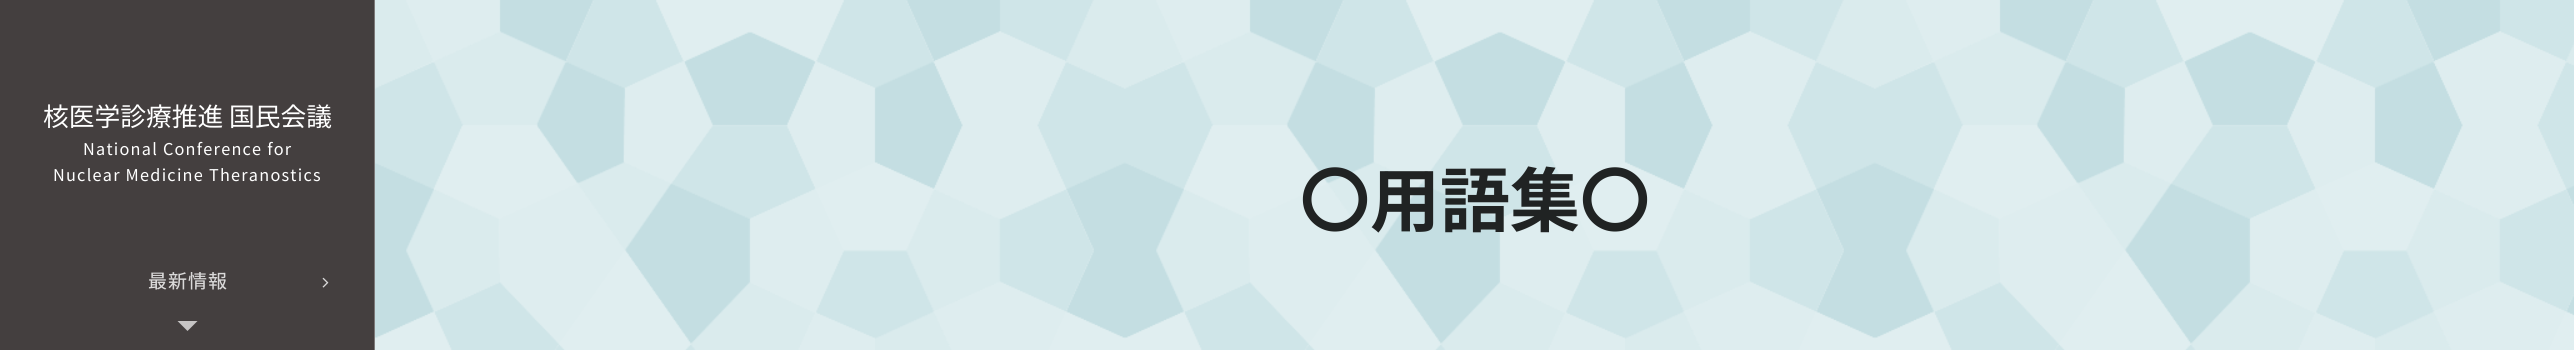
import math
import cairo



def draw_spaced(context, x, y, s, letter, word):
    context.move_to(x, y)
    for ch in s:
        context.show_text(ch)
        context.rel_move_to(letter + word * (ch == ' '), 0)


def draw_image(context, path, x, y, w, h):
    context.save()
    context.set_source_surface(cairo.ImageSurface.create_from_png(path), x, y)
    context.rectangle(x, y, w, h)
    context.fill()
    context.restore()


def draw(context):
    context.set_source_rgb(1, 1, 1)
    context.paint()
    context.set_source_rgb(68 / 255, 63 / 255, 63 / 255)
    context.rectangle(0, 0, 374, 350)
    context.fill()
    draw_image(context, "images/1.png", 322, 277, 7, 11)
    context.set_source_rgb(199 / 255, 197 / 255, 197 / 255)
    context.new_path()
    context.move_to(177.5, 321)
    context.line_to(197.5, 321)
    context.line_to(187.5, 331)
    context.close_path()
    context.fill()
    context.set_source_rgb(124 / 255, 121 / 255, 121 / 255)
    context.rectangle(374, 0, 1, 350)
    context.fill()
    draw_image(context, "images/2.png", 375, 0, 2199, 350)
    context.select_font_face("Noto Sans JP")
    context.set_font_size(25.75)
    context.set_source_rgb(1, 1, 1)
    context.move_to(43, 126)
    context.show_text("核医学診療推進 国民会議")
    context.set_font_size(16.25)
    draw_spaced(context, 83, 155, "National Conference for", 1.25, 0)
    draw_spaced(context, 53, 181, "Nuclear Medicine Theranostics", 1.25, 0)
    context.select_font_face("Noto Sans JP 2")
    context.set_font_size(19)
    context.set_source_rgb(218 / 255, 217 / 255, 217 / 255)
    draw_spaced(context, 148, 288, "最新情報", 1, 0)
    context.select_font_face("Noto Sans JP", cairo.FontSlant.NORMAL, cairo.FontWeight.BOLD)
    context.set_font_size(70)
    context.set_source_rgb(32 / 255, 35 / 255, 35 / 255)
    context.move_to(1300, 226)
    context.show_text("〇用語集〇")


surface = cairo.ImageSurface(cairo.Format.RGB24, 2574, 350)
context = cairo.Context(surface)
options = cairo.FontOptions()
options.set_hint_metrics(cairo.HintMetrics.OFF)
options.set_hint_style(cairo.HintStyle.NONE)
context.set_font_options(options)
context.set_miter_limit(4)
draw(context)
surface.write_to_png("out.png")
